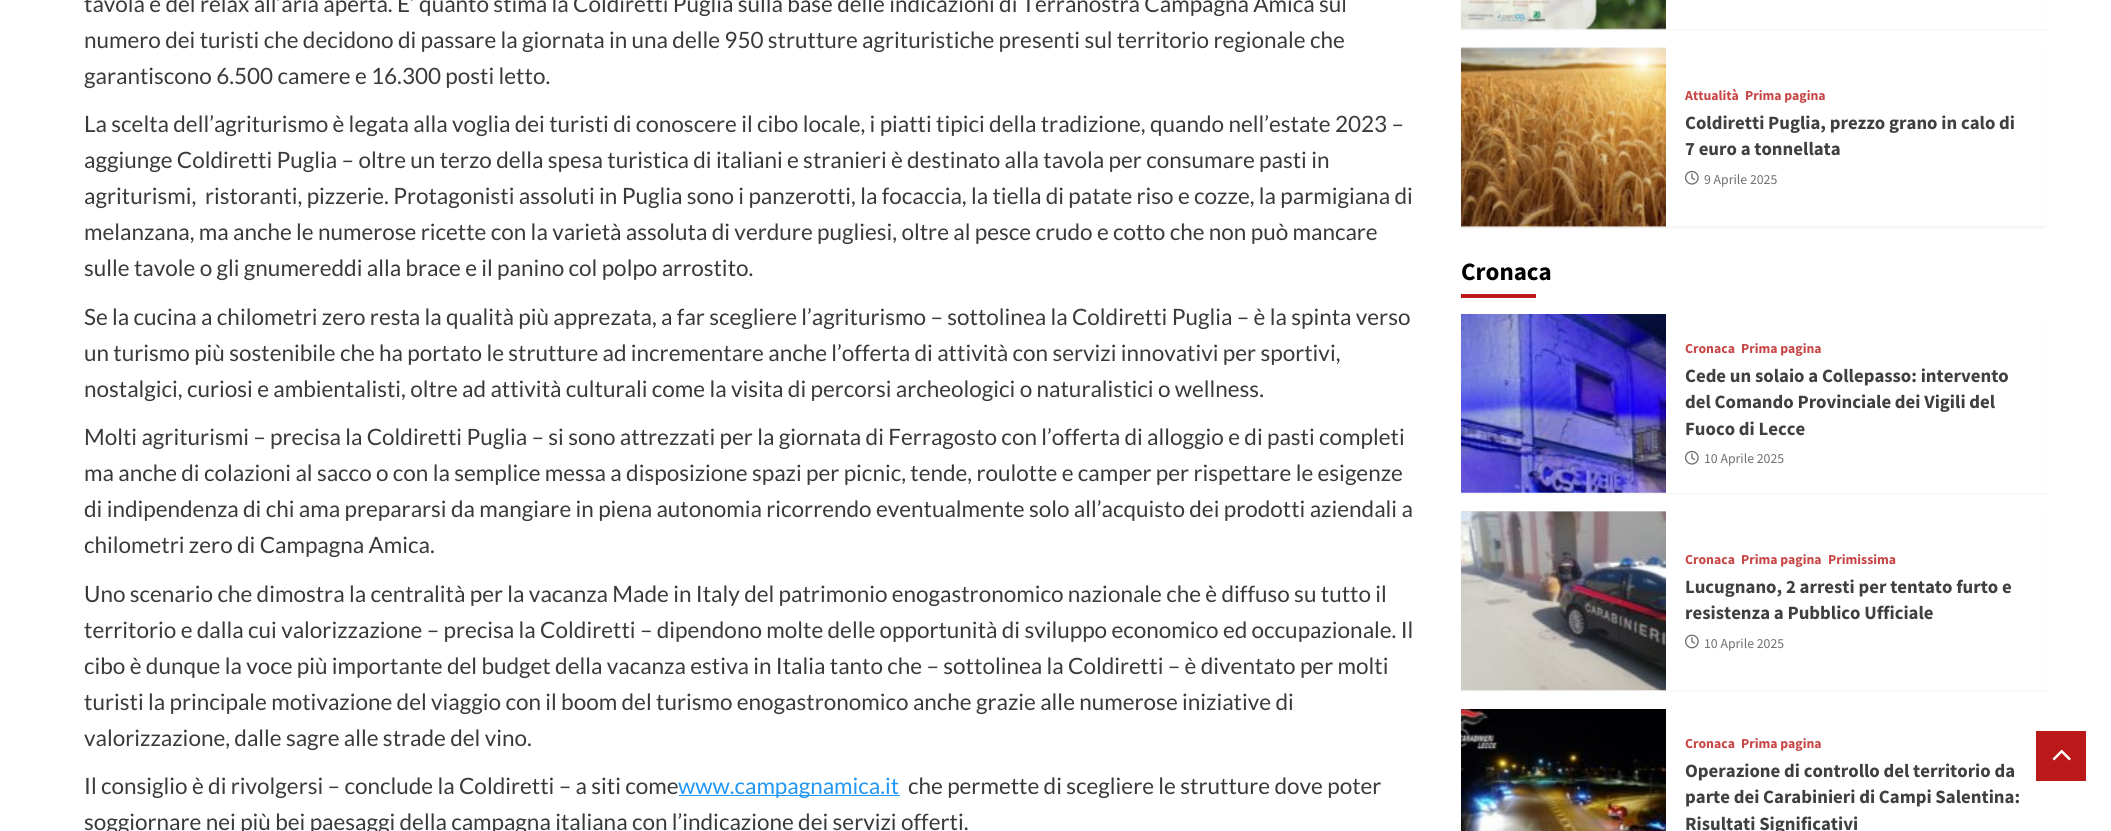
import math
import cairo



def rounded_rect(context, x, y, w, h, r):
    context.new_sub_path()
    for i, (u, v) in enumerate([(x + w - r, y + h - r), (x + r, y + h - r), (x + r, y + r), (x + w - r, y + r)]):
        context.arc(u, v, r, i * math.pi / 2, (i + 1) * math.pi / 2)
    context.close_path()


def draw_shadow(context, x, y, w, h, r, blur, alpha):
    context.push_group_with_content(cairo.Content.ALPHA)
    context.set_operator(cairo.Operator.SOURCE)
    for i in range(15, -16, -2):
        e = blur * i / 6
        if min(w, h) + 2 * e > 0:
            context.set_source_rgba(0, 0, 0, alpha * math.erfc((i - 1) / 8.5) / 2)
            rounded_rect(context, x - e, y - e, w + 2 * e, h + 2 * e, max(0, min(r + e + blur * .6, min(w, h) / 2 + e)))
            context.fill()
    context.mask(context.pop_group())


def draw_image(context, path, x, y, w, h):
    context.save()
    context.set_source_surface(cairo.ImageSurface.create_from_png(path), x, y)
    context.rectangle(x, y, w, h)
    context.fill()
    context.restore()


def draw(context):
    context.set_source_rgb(1, 1, 1)
    context.paint()
    context.set_source_rgb(33 / 255, 150 / 255, 243 / 255)
    context.rectangle(679, 795, 221, 1)
    context.fill()
    context.set_source_rgb(0, 0, 0)
    draw_shadow(context, 1461, -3, 585, 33, 0, 1, 0.05)
    context.set_source_rgb(1, 1, 1)
    context.rectangle(1461, 0, 585, 29)
    context.fill()
    draw_image(context, "images/1.png", 1461, 0, 205, 30)
    context.set_source_rgb(0, 0, 0)
    draw_shadow(context, 1461, 49, 585, 179, 0, 1, 0.05)
    context.set_source_rgb(1, 1, 1)
    context.rectangle(1461, 48, 585, 178)
    context.fill()
    draw_image(context, "images/2.png", 1461, 47, 205, 181)
    draw_image(context, "images/3.png", 1685, 170, 14, 15)
    context.set_source_rgb(187 / 255, 25 / 255, 25 / 255)
    context.rectangle(1461, 294, 75, 4)
    context.fill()
    context.set_source_rgb(0, 0, 0)
    draw_shadow(context, 1461, 315, 585, 179, 0, 1, 0.05)
    context.set_source_rgb(1, 1, 1)
    context.rectangle(1461, 314, 585, 179)
    context.fill()
    draw_image(context, "images/4.png", 1461, 314, 205, 179)
    draw_image(context, "images/3.png", 1685, 450, 14, 15)
    context.set_source_rgb(0, 0, 0)
    draw_shadow(context, 1461, 513, 585, 178, 0, 1, 0.05)
    context.set_source_rgb(1, 1, 1)
    context.rectangle(1666, 512, 380, 178)
    context.fill()
    context.set_source_rgb(216 / 255, 216 / 255, 216 / 255)
    context.rectangle(1461, 511, 205, 1)
    context.fill()
    draw_image(context, "images/5.png", 1461, 511, 205, 180)
    draw_image(context, "images/6.png", 1685, 634, 14, 15)
    draw_image(context, "images/7.png", 1461, 709, 205, 122)
    context.set_source_rgb(187 / 255, 25 / 255, 25 / 255)
    context.rectangle(2036, 731, 50, 50)
    context.fill()
    draw_image(context, "images/8.png", 2052, 749, 19, 12)
    context.select_font_face("Lato")
    context.set_font_size(22.5)
    context.set_source_rgb(58 / 255, 58 / 255, 58 / 255)
    context.move_to(84, 12)
    context.show_text("tavola e del relax all’aria aperta. E’ quanto stima la Coldiretti Puglia sulla base delle indicazioni di Terranostra Campagna Amica sul")
    context.move_to(84, 48)
    context.show_text("numero dei turisti che decidono di passare la giornata in una delle 950 strutture agrituristiche presenti sul territorio regionale che")
    context.move_to(84, 84)
    context.show_text("garantiscono 6.500 camere e 16.300 posti letto.")
    context.move_to(84, 132)
    context.show_text("La scelta dell’agriturismo è legata alla voglia dei turisti di conoscere il cibo locale, i piatti tipici della tradizione, quando nell’estate 2023 –")
    context.move_to(84, 168)
    context.show_text("aggiunge Coldiretti Puglia – oltre un terzo della spesa turistica di italiani e stranieri è destinato alla tavola per consumare pasti in")
    context.move_to(84, 204)
    context.show_text("agriturismi,  ristoranti, pizzerie. Protagonisti assoluti in Puglia sono i panzerotti, la focaccia, la tiella di patate riso e cozze, la parmigiana di")
    context.move_to(84, 240)
    context.show_text("melanzana, ma anche le numerose ricette con la varietà assoluta di verdure pugliesi, oltre al pesce crudo e cotto che non può mancare")
    context.move_to(84, 276)
    context.show_text("sulle tavole o gli gnumereddi alla brace e il panino col polpo arrostito.")
    context.move_to(84, 325)
    context.show_text("Se la cucina a chilometri zero resta la qualità più apprezata, a far scegliere l’agriturismo – sottolinea la Coldiretti Puglia – è la spinta verso")
    context.move_to(84, 361)
    context.show_text("un turismo più sostenibile che ha portato le strutture ad incrementare anche l’offerta di attività con servizi innovativi per sportivi,")
    context.move_to(84, 397)
    context.show_text("nostalgici, curiosi e ambientalisti, oltre ad attività culturali come la visita di percorsi archeologici o naturalistici o wellness.")
    context.move_to(84, 445)
    context.show_text("Molti agriturismi – precisa la Coldiretti Puglia – si sono attrezzati per la giornata di Ferragosto con l’offerta di alloggio e di pasti completi")
    context.move_to(84, 481)
    context.show_text("ma anche di colazioni al sacco o con la semplice messa a disposizione spazi per picnic, tende, roulotte e camper per rispettare le esigenze")
    context.move_to(84, 517)
    context.show_text("di indipendenza di chi ama prepararsi da mangiare in piena autonomia ricorrendo eventualmente solo all’acquisto dei prodotti aziendali a")
    context.move_to(84, 553)
    context.show_text("chilometri zero di Campagna Amica.")
    context.move_to(84, 602)
    context.show_text("Uno scenario che dimostra la centralità per la vacanza Made in Italy del patrimonio enogastronomico nazionale che è diffuso su tutto il")
    context.move_to(84, 638)
    context.show_text("territorio e dalla cui valorizzazione – precisa la Coldiretti – dipendono molte delle opportunità di sviluppo economico ed occupazionale. Il")
    context.move_to(84, 674)
    context.show_text("cibo è dunque la voce più importante del budget della vacanza estiva in Italia tanto che – sottolinea la Coldiretti – è diventato per molti")
    context.move_to(84, 710)
    context.show_text("turisti la principale motivazione del viaggio con il boom del turismo enogastronomico anche grazie alle numerose iniziative di")
    context.move_to(84, 746)
    context.show_text("valorizzazione, dalle sagre alle strade del vino.")
    context.move_to(84, 794)
    context.show_text("Il consiglio è di rivolgersi – conclude la Coldiretti – a siti come")
    context.set_source_rgb(33 / 255, 150 / 255, 243 / 255)
    context.move_to(678, 794)
    context.show_text("www.campagnamica.it")
    context.set_source_rgb(58 / 255, 58 / 255, 58 / 255)
    context.move_to(908, 794)
    context.show_text("che permette di scegliere le strutture dove poter")
    context.move_to(84, 830)
    context.show_text("soggiornare nei più bei paesaggi della campagna italiana con l’indicazione dei servizi offerti.")
    context.select_font_face("Source Sans Pro", cairo.FontSlant.NORMAL, cairo.FontWeight.BOLD)
    context.set_font_size(13.75)
    context.set_source_rgb(200 / 255, 69 / 255, 69 / 255)
    context.move_to(1685, 100)
    context.show_text("Attualità")
    context.move_to(1745, 100)
    context.show_text("Prima pagina")
    context.set_font_size(18.75)
    context.set_source_rgb(64 / 255, 64 / 255, 64 / 255)
    context.move_to(1685, 129)
    context.show_text("Coldiretti Puglia, prezzo grano in calo di")
    context.move_to(1685, 155)
    context.show_text("7 euro a tonnellata")
    context.select_font_face("Source Sans Pro")
    context.set_font_size(13.75)
    context.set_source_rgb(112 / 255, 112 / 255, 112 / 255)
    context.move_to(1704, 184)
    context.show_text("9 Aprile 2025")
    context.select_font_face("Source Sans Pro", cairo.FontSlant.NORMAL, cairo.FontWeight.BOLD)
    context.set_font_size(25)
    context.set_source_rgb(0, 0, 0)
    context.move_to(1461, 280)
    context.show_text("Cronaca")
    context.set_font_size(13.75)
    context.set_source_rgb(200 / 255, 69 / 255, 69 / 255)
    context.move_to(1685, 353)
    context.show_text("Cronaca")
    context.move_to(1741, 353)
    context.show_text("Prima pagina")
    context.set_font_size(18.75)
    context.set_source_rgb(64 / 255, 64 / 255, 64 / 255)
    context.move_to(1685, 382)
    context.show_text("Cede un solaio a Collepasso: intervento")
    context.move_to(1685, 408)
    context.show_text("del Comando Provinciale dei Vigili del")
    context.move_to(1685, 435)
    context.show_text("Fuoco di Lecce")
    context.select_font_face("Source Sans Pro")
    context.set_font_size(13.75)
    context.set_source_rgb(112 / 255, 112 / 255, 112 / 255)
    context.move_to(1704, 463)
    context.show_text("10 Aprile 2025")
    context.select_font_face("Source Sans Pro", cairo.FontSlant.NORMAL, cairo.FontWeight.BOLD)
    context.set_source_rgb(200 / 255, 69 / 255, 69 / 255)
    context.move_to(1685, 564)
    context.show_text("Cronaca")
    context.move_to(1741, 564)
    context.show_text("Prima pagina")
    context.move_to(1828, 564)
    context.show_text("Primissima")
    context.set_font_size(18.75)
    context.set_source_rgb(64 / 255, 64 / 255, 64 / 255)
    context.move_to(1685, 593)
    context.show_text("Lucugnano, 2 arresti per tentato furto e")
    context.move_to(1685, 619)
    context.show_text("resistenza a Pubblico Ufficiale")
    context.select_font_face("Source Sans Pro")
    context.set_font_size(13.75)
    context.set_source_rgb(112 / 255, 112 / 255, 112 / 255)
    context.move_to(1704, 648)
    context.show_text("10 Aprile 2025")
    context.select_font_face("Source Sans Pro", cairo.FontSlant.NORMAL, cairo.FontWeight.BOLD)
    context.set_source_rgb(200 / 255, 69 / 255, 69 / 255)
    context.move_to(1685, 748)
    context.show_text("Cronaca")
    context.move_to(1741, 748)
    context.show_text("Prima pagina")
    context.set_font_size(18.75)
    context.set_source_rgb(64 / 255, 64 / 255, 64 / 255)
    context.move_to(1685, 777)
    context.show_text("Operazione di controllo del territorio da")
    context.move_to(1685, 803)
    context.show_text("parte dei Carabinieri di Campi Salentina:")
    context.move_to(1685, 830)
    context.show_text("Risultati Significativi")


surface = cairo.ImageSurface(cairo.Format.RGB24, 2111, 831)
context = cairo.Context(surface)
options = cairo.FontOptions()
options.set_hint_metrics(cairo.HintMetrics.OFF)
options.set_hint_style(cairo.HintStyle.NONE)
context.set_font_options(options)
context.set_miter_limit(4)
draw(context)
surface.write_to_png("out.png")
